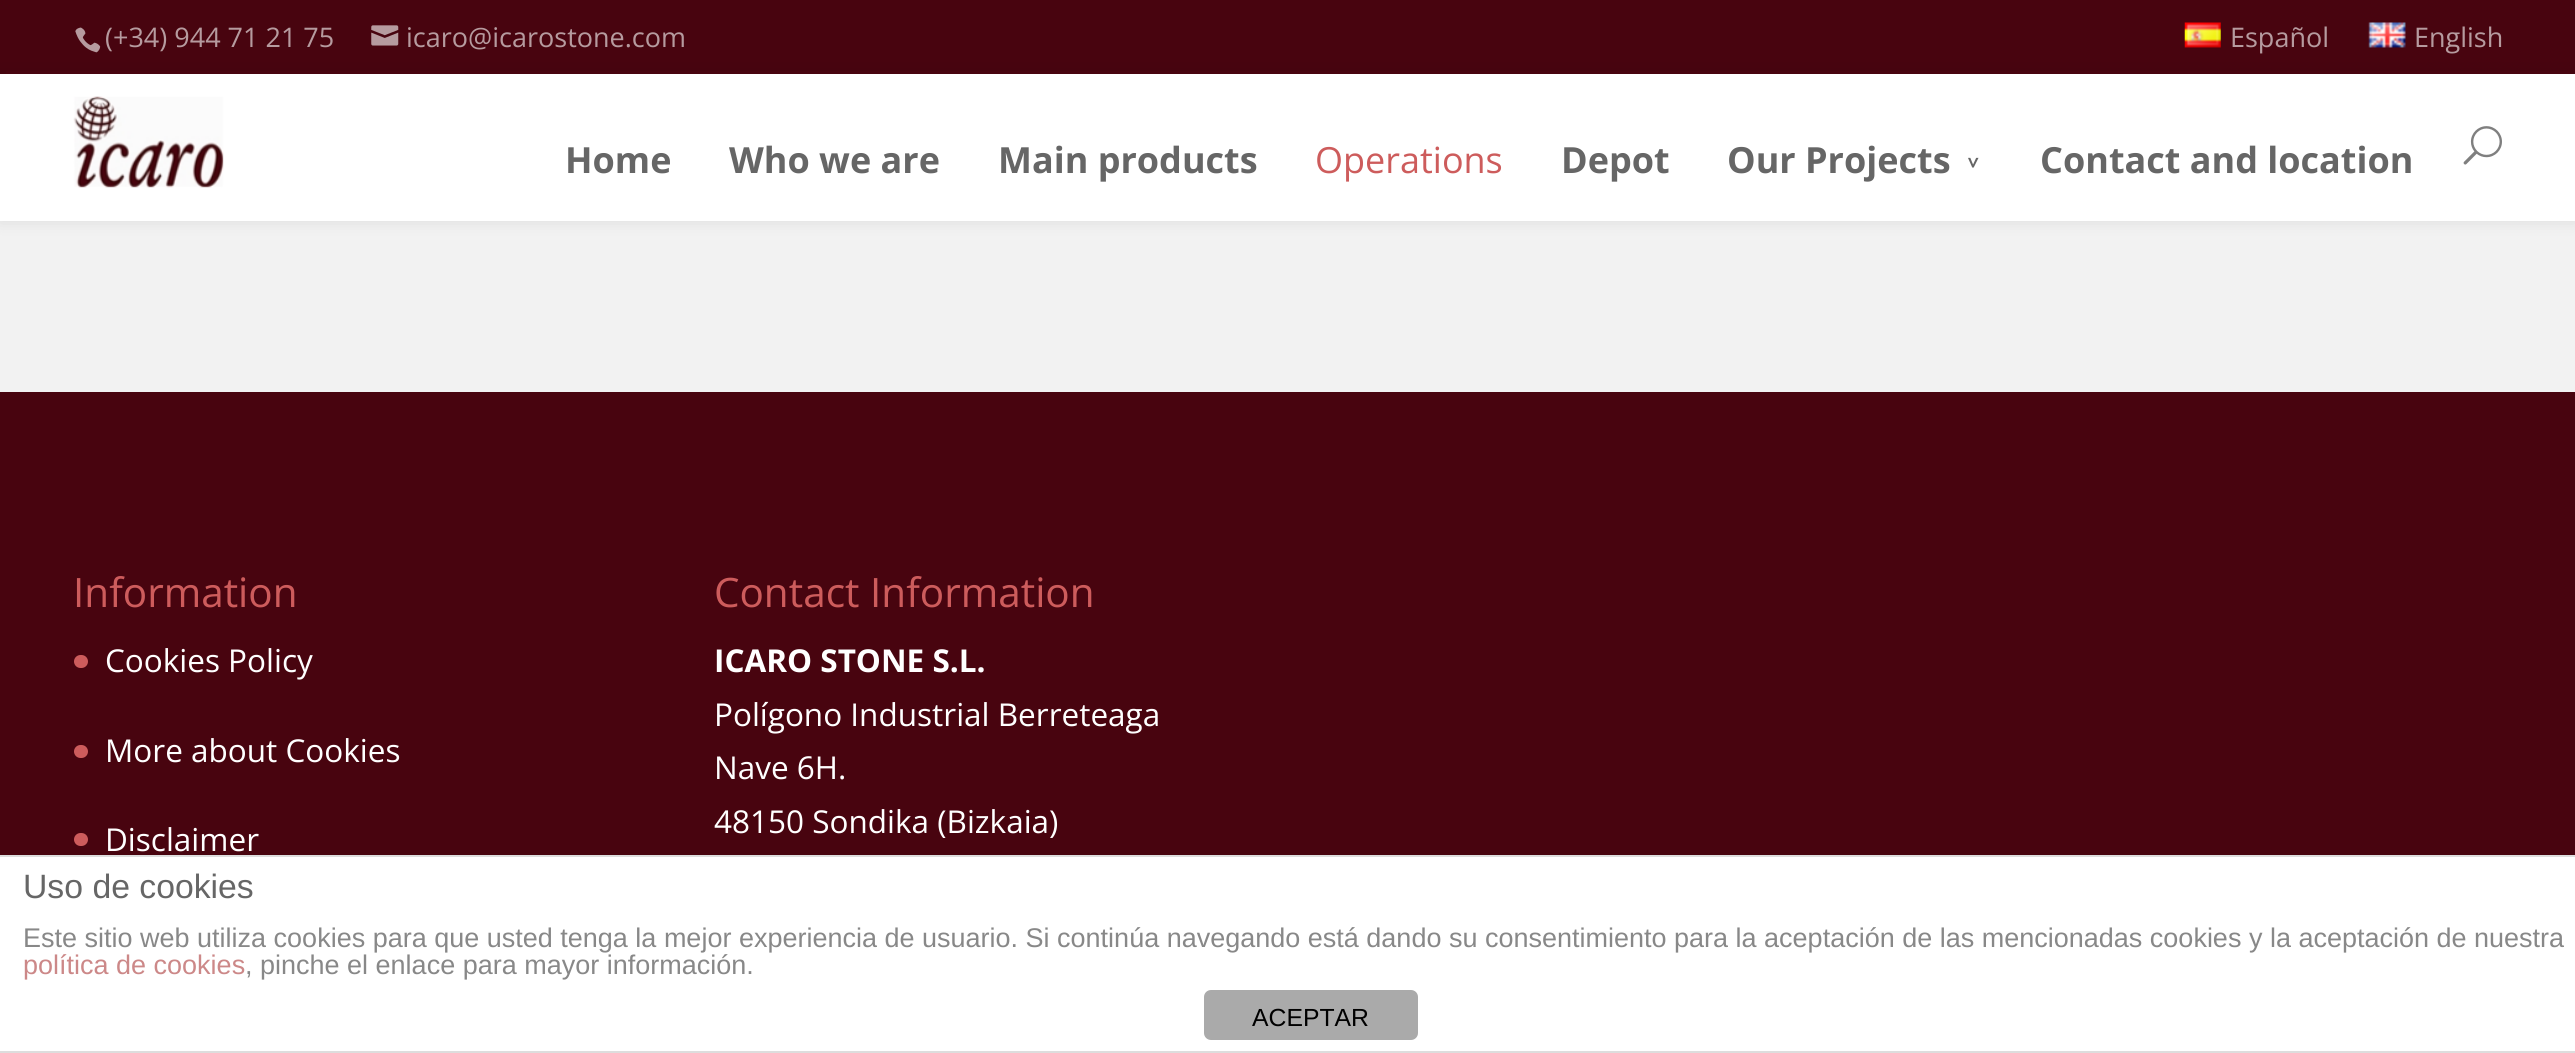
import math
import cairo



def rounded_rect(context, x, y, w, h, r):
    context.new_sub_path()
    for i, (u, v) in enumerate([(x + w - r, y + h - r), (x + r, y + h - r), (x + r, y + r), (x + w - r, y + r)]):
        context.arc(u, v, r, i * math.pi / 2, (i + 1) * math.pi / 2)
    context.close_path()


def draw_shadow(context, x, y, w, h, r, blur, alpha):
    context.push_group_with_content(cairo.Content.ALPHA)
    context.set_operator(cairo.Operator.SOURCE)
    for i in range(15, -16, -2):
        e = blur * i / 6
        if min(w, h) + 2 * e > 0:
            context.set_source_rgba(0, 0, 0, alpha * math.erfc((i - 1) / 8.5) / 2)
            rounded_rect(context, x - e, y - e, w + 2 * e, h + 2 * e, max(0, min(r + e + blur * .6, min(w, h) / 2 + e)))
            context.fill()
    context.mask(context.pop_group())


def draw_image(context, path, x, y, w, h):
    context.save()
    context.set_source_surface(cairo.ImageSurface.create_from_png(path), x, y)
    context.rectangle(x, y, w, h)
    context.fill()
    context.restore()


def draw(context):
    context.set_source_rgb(72 / 255, 4 / 255, 15 / 255)
    context.paint()
    context.set_source_rgb(242 / 255, 242 / 255, 242 / 255)
    context.rectangle(0, 221, 2575, 171)
    context.fill()
    context.set_source_rgb(0, 0, 0)
    draw_shadow(context, 0, 74, 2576, 147, 0, 8, 0.1)
    context.set_source_rgb(72 / 255, 4 / 255, 15 / 255)
    context.rectangle(6, 71, 2564, 3)
    context.fill()
    draw_image(context, "images/1.png", 75, 27, 26, 26)
    draw_image(context, "images/2.png", 371, 25, 28, 21)
    draw_image(context, "images/3.png", 2184, 22, 37, 26)
    draw_image(context, "images/4.png", 2368, 22, 38, 26)
    context.set_source_rgb(1, 1, 1)
    context.rectangle(0, 74, 2575, 147)
    context.fill()
    draw_image(context, "images/5.png", 73, 96, 151, 92)
    draw_image(context, "images/6.png", 2463, 126, 39, 39)
    context.set_source_rgb(205 / 255, 92 / 255, 92 / 255)
    rounded_rect(context, 74, 655, 14, 13, 6.5)
    context.fill()
    rounded_rect(context, 74, 745, 14, 13, 6.5)
    context.fill()
    rounded_rect(context, 74, 833, 14, 13, 6.5)
    context.fill()
    context.set_source_rgb(1, 1, 1)
    context.rectangle(0, 857, 2575, 194)
    context.fill()
    context.set_source_rgb(221 / 255, 221 / 255, 221 / 255)
    context.rectangle(0, 855, 2575, 2)
    context.fill()
    context.rectangle(0, 1051, 2575, 2)
    context.fill()
    context.set_source_rgb(170 / 255, 170 / 255, 170 / 255)
    rounded_rect(context, 1204, 990, 214, 50, 7)
    context.fill()
    context.select_font_face("Open Sans")
    context.set_font_size(27)
    context.set_source_rgb(182 / 255, 155 / 255, 159 / 255)
    context.move_to(105, 47)
    context.show_text("(+34) 944 71 21 75")
    context.move_to(406, 47)
    context.show_text("icaro@icarostone.com")
    context.move_to(2230, 47)
    context.show_text("Español")
    context.move_to(2414, 47)
    context.show_text("English")
    context.select_font_face("Open Sans", cairo.FontSlant.NORMAL, cairo.FontWeight.BOLD)
    context.set_font_size(36)
    context.set_source_rgb(102 / 255, 102 / 255, 102 / 255)
    context.move_to(565, 173)
    context.show_text("Home")
    context.move_to(729, 173)
    context.show_text("Who we are")
    context.move_to(998, 173)
    context.show_text("Main products")
    context.select_font_face("Open Sans")
    context.set_source_rgb(205 / 255, 92 / 255, 92 / 255)
    context.move_to(1315, 173)
    context.show_text("Operations")
    context.select_font_face("Open Sans", cairo.FontSlant.NORMAL, cairo.FontWeight.BOLD)
    context.set_source_rgb(102 / 255, 102 / 255, 102 / 255)
    context.move_to(1561, 173)
    context.show_text("Depot")
    context.move_to(1727, 173)
    context.show_text("Our Projects")
    context.set_font_size(20)
    context.save()
    context.translate(1966, 157)
    context.rotate(90 * math.pi / 180)
    context.move_to(0, 0)
    context.show_text(">")
    context.restore()
    context.set_font_size(36)
    context.move_to(2040, 173)
    context.show_text("Contact and location")
    context.select_font_face("Open Sans")
    context.set_font_size(40.5)
    context.set_source_rgb(205 / 255, 92 / 255, 92 / 255)
    context.move_to(73, 607)
    context.show_text("Information")
    context.set_font_size(31.5)
    context.set_source_rgb(1, 1, 1)
    context.move_to(105, 672)
    context.show_text("Cookies Policy")
    context.move_to(105, 762)
    context.show_text("More about Cookies")
    context.move_to(105, 851)
    context.show_text("Disclaimer")
    context.set_font_size(40.5)
    context.set_source_rgb(205 / 255, 92 / 255, 92 / 255)
    context.move_to(714, 607)
    context.show_text("Contact Information")
    context.select_font_face("Open Sans", cairo.FontSlant.NORMAL, cairo.FontWeight.BOLD)
    context.set_font_size(31.5)
    context.set_source_rgb(1, 1, 1)
    context.move_to(714, 672)
    context.show_text("ICARO STONE S.L.")
    context.select_font_face("Open Sans")
    context.move_to(714, 726)
    context.show_text("Polígono Industrial Berreteaga")
    context.move_to(714, 779)
    context.show_text("Nave 6H.")
    context.move_to(714, 833)
    context.show_text("48150 Sondika (Bizkaia)")
    context.select_font_face("Liberation Sans")
    context.set_font_size(33.75)
    context.set_source_rgb(102 / 255, 102 / 255, 102 / 255)
    context.move_to(23, 898)
    context.show_text("Uso de cookies")
    context.set_font_size(27)
    context.set_source_rgb(136 / 255, 136 / 255, 136 / 255)
    context.move_to(23, 947)
    context.show_text("Este sitio web utiliza cookies para que usted tenga la mejor experiencia de usuario. Si continúa navegando está dando su consentimiento para la aceptación de las mencionadas cookies y la aceptación de nuestra")
    context.set_source_rgb(204 / 255, 136 / 255, 136 / 255)
    context.move_to(23, 974)
    context.show_text("política de cookies")
    context.set_source_rgb(136 / 255, 136 / 255, 136 / 255)
    context.move_to(245, 974)
    context.show_text(", pinche el enlace para mayor información.")
    context.set_font_size(24.75)
    context.set_source_rgb(0, 0, 0)
    context.move_to(1252, 1026)
    context.show_text("ACEPTAR")


surface = cairo.ImageSurface(cairo.Format.RGB24, 2575, 1053)
context = cairo.Context(surface)
options = cairo.FontOptions()
options.set_hint_metrics(cairo.HintMetrics.OFF)
options.set_hint_style(cairo.HintStyle.NONE)
context.set_font_options(options)
context.set_miter_limit(4)
draw(context)
surface.write_to_png("out.png")
